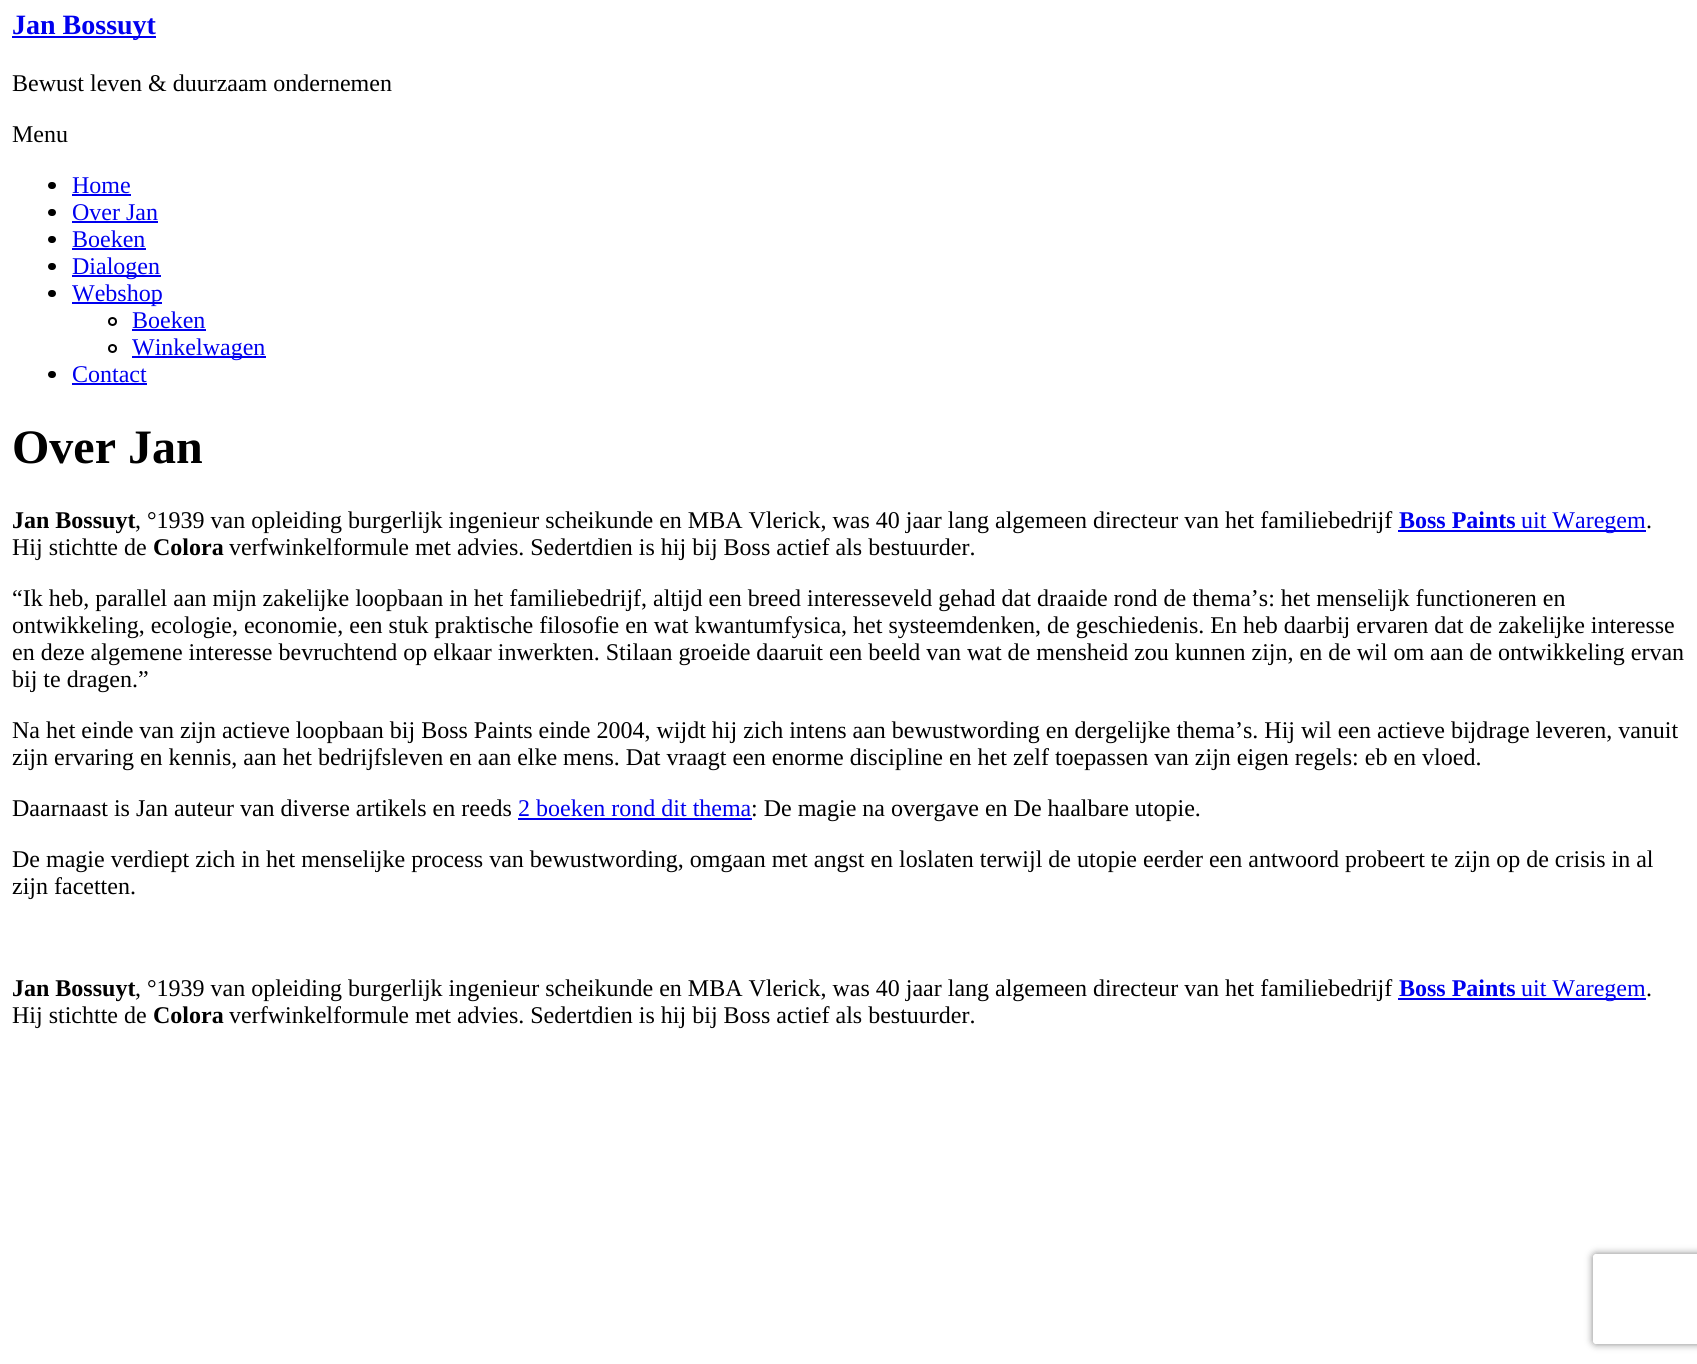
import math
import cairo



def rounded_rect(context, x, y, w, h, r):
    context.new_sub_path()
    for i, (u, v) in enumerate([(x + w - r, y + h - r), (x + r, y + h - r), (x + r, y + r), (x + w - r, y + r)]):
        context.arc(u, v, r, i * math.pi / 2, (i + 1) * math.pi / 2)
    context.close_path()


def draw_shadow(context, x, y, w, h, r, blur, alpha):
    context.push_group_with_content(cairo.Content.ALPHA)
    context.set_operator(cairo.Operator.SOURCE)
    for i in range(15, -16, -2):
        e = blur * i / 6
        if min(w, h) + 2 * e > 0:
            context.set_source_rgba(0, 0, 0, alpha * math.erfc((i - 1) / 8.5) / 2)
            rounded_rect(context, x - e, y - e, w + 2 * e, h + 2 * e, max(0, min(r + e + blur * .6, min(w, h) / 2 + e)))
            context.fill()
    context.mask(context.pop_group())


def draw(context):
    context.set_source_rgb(1, 1, 1)
    context.paint()
    context.set_source_rgb(0, 0, 238 / 255)
    context.rectangle(12, 36, 144, 2)
    context.fill()
    context.set_source_rgb(0, 0, 0)
    rounded_rect(context, 48, 182, 8, 7, 3.5)
    context.fill()
    context.set_source_rgb(0, 0, 238 / 255)
    context.rectangle(72, 194, 59, 2)
    context.fill()
    context.set_source_rgb(0, 0, 0)
    rounded_rect(context, 48, 209, 8, 7, 3.5)
    context.fill()
    context.set_source_rgb(0, 0, 238 / 255)
    context.rectangle(72, 221, 86, 2)
    context.fill()
    context.set_source_rgb(0, 0, 0)
    rounded_rect(context, 48, 236, 8, 7, 3.5)
    context.fill()
    context.set_source_rgb(0, 0, 238 / 255)
    context.rectangle(72, 248, 74, 2)
    context.fill()
    context.set_source_rgb(0, 0, 0)
    rounded_rect(context, 48, 263, 8, 7, 3.5)
    context.fill()
    context.set_source_rgb(0, 0, 238 / 255)
    context.rectangle(72, 275, 89, 2)
    context.fill()
    context.set_source_rgb(0, 0, 0)
    rounded_rect(context, 48, 290, 8, 7, 3.5)
    context.fill()
    context.set_source_rgb(0, 0, 238 / 255)
    context.rectangle(72, 302, 90, 2)
    context.fill()
    context.arc(112.5, 321.5, 3.5, 0, 2 * math.pi)
    context.set_source_rgb(0, 0, 0)
    context.stroke()
    context.set_source_rgb(0, 0, 238 / 255)
    context.rectangle(132, 329, 74, 2)
    context.fill()
    context.arc(112.5, 348.5, 3.5, 0, 2 * math.pi)
    context.set_source_rgb(0, 0, 0)
    context.stroke()
    context.set_source_rgb(0, 0, 238 / 255)
    context.rectangle(132, 356, 134, 2)
    context.fill()
    context.set_source_rgb(0, 0, 0)
    rounded_rect(context, 48, 371, 8, 7, 3.5)
    context.fill()
    context.set_source_rgb(0, 0, 238 / 255)
    context.rectangle(72, 383, 75, 2)
    context.fill()
    context.rectangle(1398, 530, 248, 2)
    context.fill()
    context.rectangle(518, 818, 234, 2)
    context.fill()
    context.rectangle(1398, 998, 248, 2)
    context.fill()
    context.save()
    context.set_fill_rule(cairo.FillRule.EVEN_ODD)
    context.new_path()
    context.move_to(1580, 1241)
    context.line_to(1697, 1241)
    context.line_to(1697, 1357)
    context.line_to(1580, 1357)
    context.close_path()
    context.move_to(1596, 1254)
    context.line_to(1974, 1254)
    context.curve_to(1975.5, 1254, 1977, 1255.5, 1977, 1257)
    context.line_to(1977, 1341)
    context.curve_to(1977, 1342.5, 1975.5, 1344, 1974, 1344)
    context.line_to(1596, 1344)
    context.curve_to(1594.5, 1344, 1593, 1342.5, 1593, 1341)
    context.line_to(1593, 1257)
    context.curve_to(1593, 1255.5, 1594.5, 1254, 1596, 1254)
    context.close_path()
    context.clip()
    context.set_source_rgb(128 / 255, 128 / 255, 128 / 255)
    draw_shadow(context, 1593, 1254, 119, 90, 3, 4, 1)
    context.restore()
    context.select_font_face("Liberation Serif", cairo.FontSlant.NORMAL, cairo.FontWeight.BOLD)
    context.set_font_size(28)
    context.move_to(12, 34)
    context.show_text("Jan Bossuyt")
    context.select_font_face("Liberation Serif")
    context.set_font_size(24)
    context.set_source_rgb(0, 0, 0)
    context.move_to(12, 91)
    context.show_text("Bewust leven & duurzaam ondernemen")
    context.move_to(12, 142)
    context.show_text("Menu")
    context.set_source_rgb(0, 0, 238 / 255)
    context.move_to(72, 193)
    context.show_text("Home")
    context.move_to(72, 220)
    context.show_text("Over Jan")
    context.move_to(72, 247)
    context.show_text("Boeken")
    context.move_to(72, 274)
    context.show_text("Dialogen")
    context.move_to(72, 301)
    context.show_text("Webshop")
    context.move_to(132, 328)
    context.show_text("Boeken")
    context.move_to(132, 355)
    context.show_text("Winkelwagen")
    context.move_to(72, 382)
    context.show_text("Contact")
    context.select_font_face("Liberation Serif", cairo.FontSlant.NORMAL, cairo.FontWeight.BOLD)
    context.set_font_size(48)
    context.set_source_rgb(0, 0, 0)
    context.move_to(12, 463)
    context.show_text("Over Jan")
    context.set_font_size(24)
    context.move_to(12, 528)
    context.show_text("Jan Bossuyt")
    context.select_font_face("Liberation Serif")
    context.move_to(135, 528)
    context.show_text(", °1939 van opleiding burgerlijk ingenieur scheikunde en MBA Vlerick, was 40 jaar lang algemeen directeur van het familiebedrijf")
    context.select_font_face("Liberation Serif", cairo.FontSlant.NORMAL, cairo.FontWeight.BOLD)
    context.set_source_rgb(0, 0, 238 / 255)
    context.move_to(1399, 528)
    context.show_text("Boss Paints")
    context.select_font_face("Liberation Serif")
    context.move_to(1521, 528)
    context.show_text("uit Waregem")
    context.set_source_rgb(0, 0, 0)
    context.move_to(1646, 528)
    context.show_text(".")
    context.move_to(12, 555)
    context.show_text("Hij stichtte de")
    context.select_font_face("Liberation Serif", cairo.FontSlant.NORMAL, cairo.FontWeight.BOLD)
    context.move_to(153, 555)
    context.show_text("Colora")
    context.select_font_face("Liberation Serif")
    context.move_to(229, 555)
    context.show_text("verfwinkelformule met advies. Sedertdien is hij bij Boss actief als bestuurder.")
    context.move_to(12, 606)
    context.show_text("“Ik heb, parallel aan mijn zakelijke loopbaan in het familiebedrijf, altijd een breed interesseveld gehad dat draaide rond de thema’s: het menselijk functioneren en")
    context.move_to(12, 633)
    context.show_text("ontwikkeling, ecologie, economie, een stuk praktische filosofie en wat kwantumfysica, het systeemdenken, de geschiedenis. En heb daarbij ervaren dat de zakelijke interesse")
    context.move_to(12, 660)
    context.show_text("en deze algemene interesse bevruchtend op elkaar inwerkten. Stilaan groeide daaruit een beeld van wat de mensheid zou kunnen zijn, en de wil om aan de ontwikkeling ervan")
    context.move_to(12, 687)
    context.show_text("bij te dragen.”")
    context.move_to(12, 738)
    context.show_text("Na het einde van zijn actieve loopbaan bij Boss Paints einde 2004, wijdt hij zich intens aan bewustwording en dergelijke thema’s. Hij wil een actieve bijdrage leveren, vanuit")
    context.move_to(12, 765)
    context.show_text("zijn ervaring en kennis, aan het bedrijfsleven en aan elke mens. Dat vraagt een enorme discipline en het zelf toepassen van zijn eigen regels: eb en vloed.")
    context.move_to(12, 816)
    context.show_text("Daarnaast is Jan auteur van diverse artikels en reeds")
    context.set_source_rgb(0, 0, 238 / 255)
    context.move_to(518, 816)
    context.show_text("2 boeken rond dit thema")
    context.set_source_rgb(0, 0, 0)
    context.move_to(751, 816)
    context.show_text(": De magie na overgave en De haalbare utopie.")
    context.move_to(12, 867)
    context.show_text("De magie verdiept zich in het menselijke process van bewustwording, omgaan met angst en loslaten terwijl de utopie eerder een antwoord probeert te zijn op de crisis in al")
    context.move_to(12, 894)
    context.show_text("zijn facetten.")
    context.select_font_face("Liberation Serif", cairo.FontSlant.NORMAL, cairo.FontWeight.BOLD)
    context.move_to(12, 996)
    context.show_text("Jan Bossuyt")
    context.select_font_face("Liberation Serif")
    context.move_to(135, 996)
    context.show_text(", °1939 van opleiding burgerlijk ingenieur scheikunde en MBA Vlerick, was 40 jaar lang algemeen directeur van het familiebedrijf")
    context.select_font_face("Liberation Serif", cairo.FontSlant.NORMAL, cairo.FontWeight.BOLD)
    context.set_source_rgb(0, 0, 238 / 255)
    context.move_to(1399, 996)
    context.show_text("Boss Paints")
    context.select_font_face("Liberation Serif")
    context.move_to(1521, 996)
    context.show_text("uit Waregem")
    context.set_source_rgb(0, 0, 0)
    context.move_to(1646, 996)
    context.show_text(".")
    context.move_to(12, 1023)
    context.show_text("Hij stichtte de")
    context.select_font_face("Liberation Serif", cairo.FontSlant.NORMAL, cairo.FontWeight.BOLD)
    context.move_to(153, 1023)
    context.show_text("Colora")
    context.select_font_face("Liberation Serif")
    context.move_to(229, 1023)
    context.show_text("verfwinkelformule met advies. Sedertdien is hij bij Boss actief als bestuurder.")


surface = cairo.ImageSurface(cairo.Format.RGB24, 1697, 1364)
context = cairo.Context(surface)
options = cairo.FontOptions()
options.set_hint_metrics(cairo.HintMetrics.OFF)
options.set_hint_style(cairo.HintStyle.NONE)
context.set_font_options(options)
context.set_miter_limit(4)
draw(context)
surface.write_to_png("out.png")
